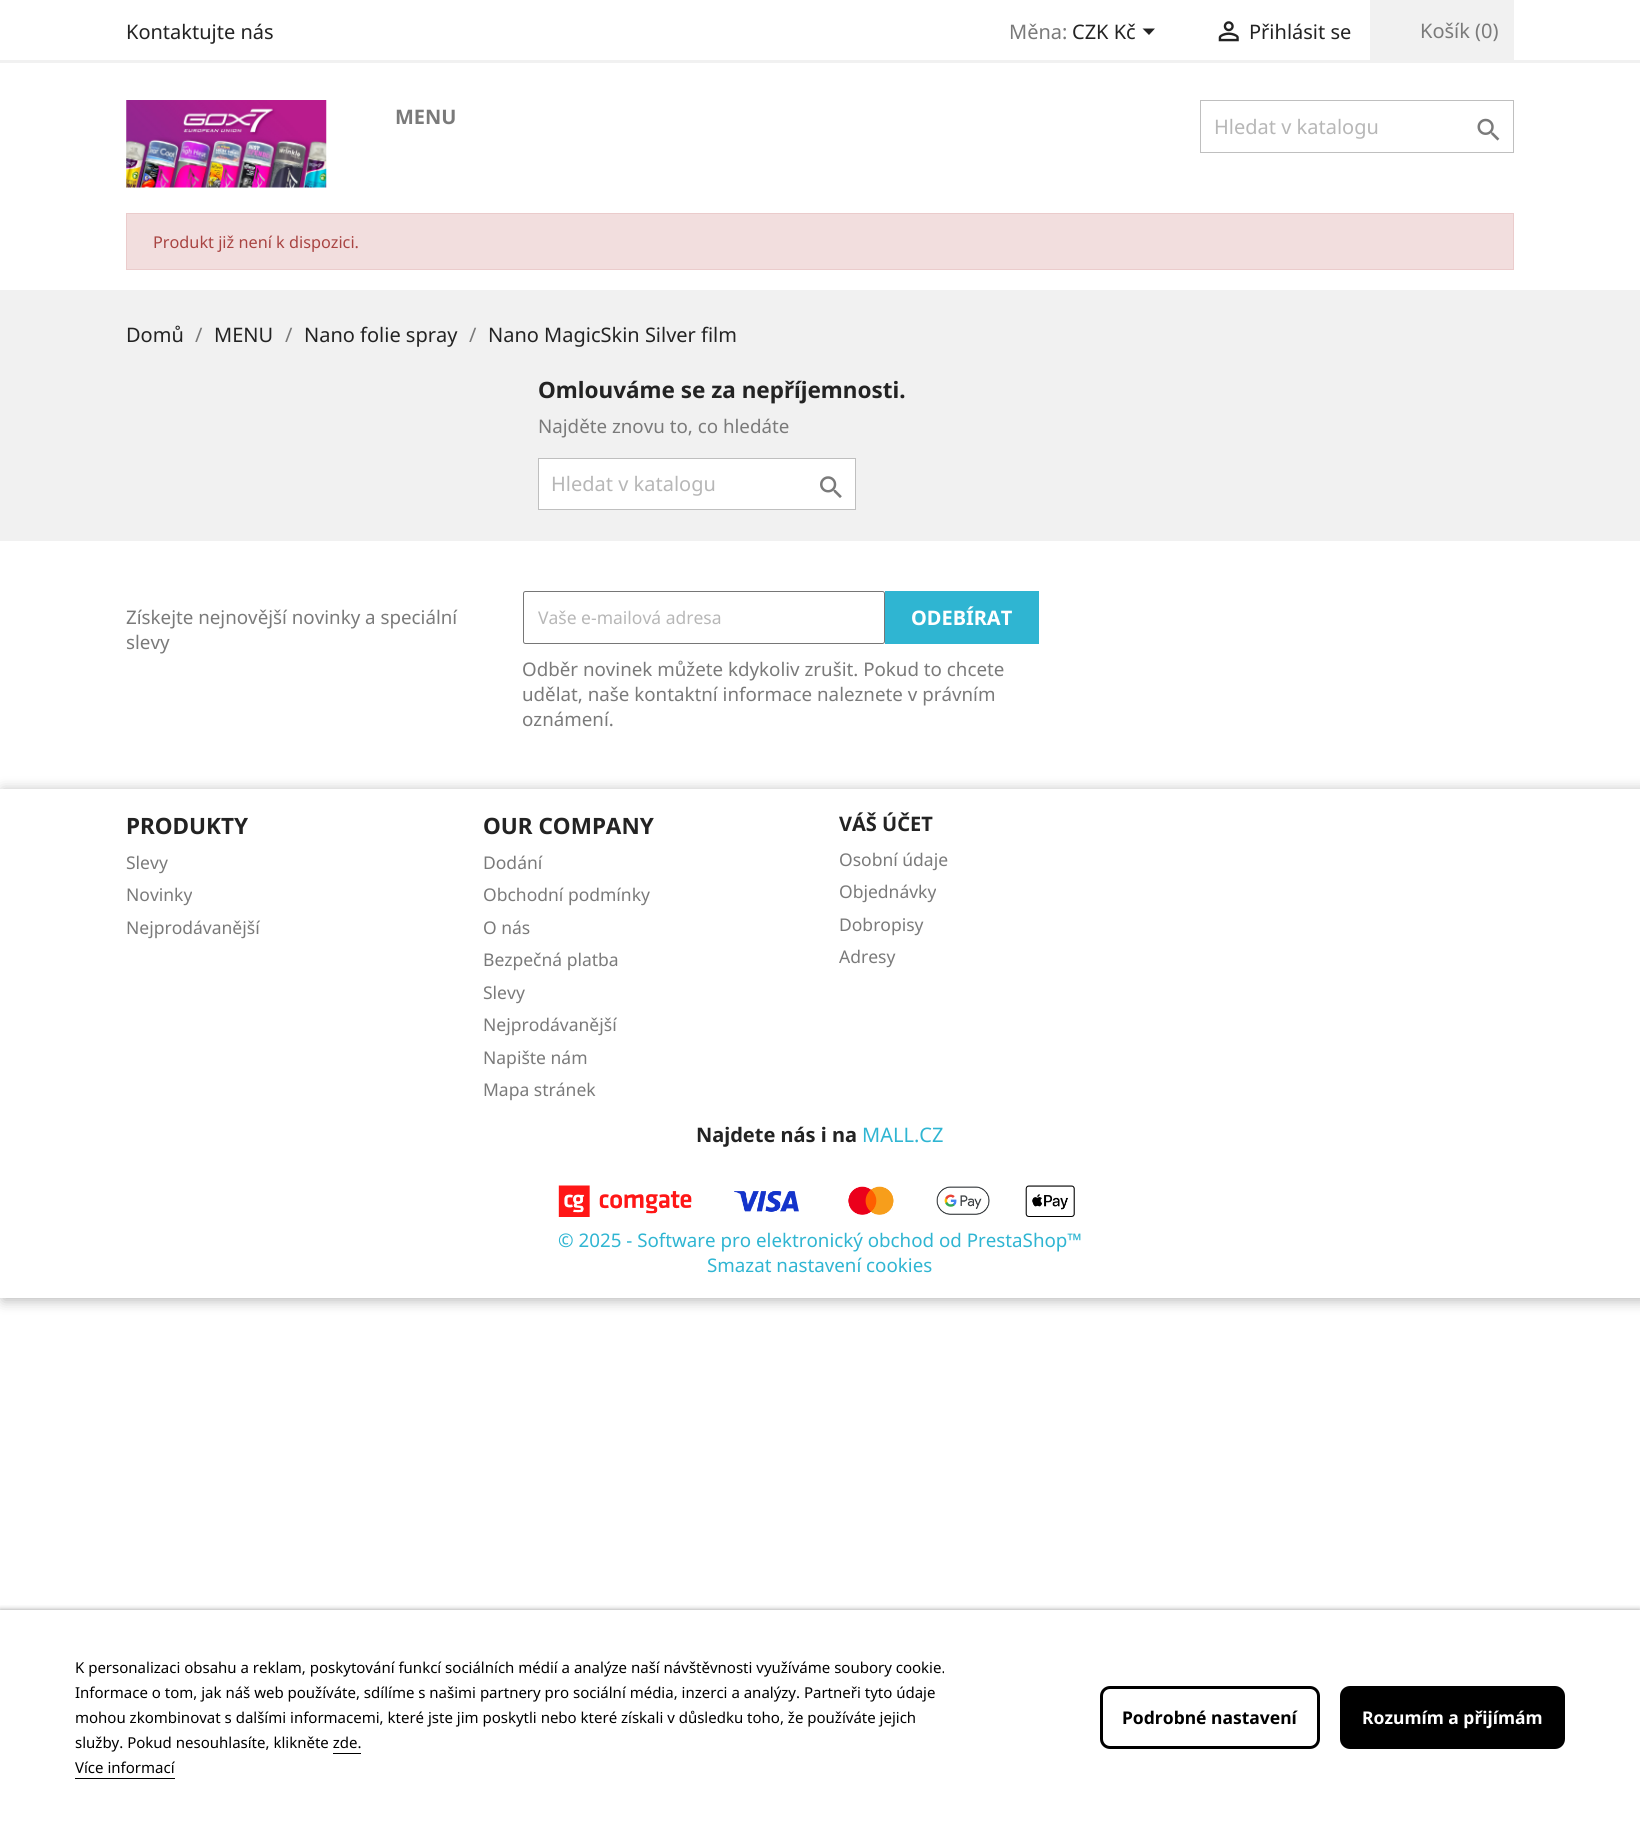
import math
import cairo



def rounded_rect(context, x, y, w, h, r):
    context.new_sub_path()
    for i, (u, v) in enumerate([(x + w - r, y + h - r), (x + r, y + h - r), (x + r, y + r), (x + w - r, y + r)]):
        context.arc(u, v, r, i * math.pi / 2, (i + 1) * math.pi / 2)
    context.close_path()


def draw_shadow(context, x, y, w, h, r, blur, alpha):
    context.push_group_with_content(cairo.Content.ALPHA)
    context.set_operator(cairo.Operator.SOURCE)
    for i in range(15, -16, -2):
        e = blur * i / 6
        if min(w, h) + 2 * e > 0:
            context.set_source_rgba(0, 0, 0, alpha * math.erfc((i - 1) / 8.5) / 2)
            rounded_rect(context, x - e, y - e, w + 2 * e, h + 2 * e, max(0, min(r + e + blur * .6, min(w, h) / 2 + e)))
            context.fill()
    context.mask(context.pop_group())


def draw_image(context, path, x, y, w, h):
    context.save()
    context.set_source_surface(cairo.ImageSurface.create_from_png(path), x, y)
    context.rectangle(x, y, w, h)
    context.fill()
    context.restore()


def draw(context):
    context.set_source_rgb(1, 1, 1)
    context.paint()
    context.set_source_rgb(241 / 255, 241 / 255, 241 / 255)
    context.rectangle(0, 60, 1640, 3)
    context.fill()
    context.set_source_rgb(35 / 255, 35 / 255, 35 / 255)
    context.new_path()
    context.move_to(1142.5, 28.5)
    context.line_to(1155, 28.5)
    context.line_to(1149, 35)
    context.close_path()
    context.fill()
    draw_image(context, "images/1.png", 1218, 21, 21, 21)
    context.set_source_rgb(241 / 255, 241 / 255, 241 / 255)
    context.rectangle(1370, 0, 144, 60)
    context.fill()
    draw_image(context, "images/2.png", 126, 100, 201, 88)
    context.rectangle(1200.5, 100.5, 313, 52)
    context.set_source_rgb(191 / 255, 191 / 255, 191 / 255)
    context.set_line_width(1)
    context.stroke()
    draw_image(context, "images/3.png", 1477, 118, 23, 23)
    context.set_source_rgb(242 / 255, 222 / 255, 222 / 255)
    context.rectangle(126.5, 213.5, 1387, 56)
    context.fill_preserve()
    context.set_source_rgb(235 / 255, 204 / 255, 204 / 255)
    context.stroke()
    context.set_source_rgb(241 / 255, 241 / 255, 241 / 255)
    context.rectangle(0, 290, 1640, 251)
    context.fill()
    context.set_source_rgb(1, 1, 1)
    context.rectangle(538.5, 458.5, 317, 51)
    context.fill_preserve()
    context.set_source_rgb(191 / 255, 191 / 255, 191 / 255)
    context.stroke()
    draw_image(context, "images/4.png", 820, 476, 22, 22)
    rounded_rect(context, 523.5, 591.5, 361, 52, 2)
    context.set_source_rgb(118 / 255, 118 / 255, 118 / 255)
    context.stroke()
    context.set_source_rgb(47 / 255, 181 / 255, 210 / 255)
    context.rectangle(885, 591, 154, 53)
    context.fill()
    context.save()
    context.set_fill_rule(cairo.FillRule.EVEN_ODD)
    context.new_path()
    context.move_to(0, 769)
    context.line_to(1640, 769)
    context.line_to(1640, 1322)
    context.line_to(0, 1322)
    context.close_path()
    context.move_to(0, 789)
    context.line_to(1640, 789)
    context.line_to(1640, 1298)
    context.line_to(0, 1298)
    context.close_path()
    context.clip()
    context.set_source_rgb(0, 0, 0)
    draw_shadow(context, 3, 791, 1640, 509, 0, 7, 0.3)
    context.restore()
    context.save()
    context.rectangle(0, 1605, 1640, 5)
    context.clip()
    context.set_source_rgb(112 / 255, 112 / 255, 112 / 255)
    draw_shadow(context, 0, 1611, 1640, 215, 0, 3, 1)
    context.restore()
    context.set_source_rgb(0, 0, 0)
    context.rectangle(333, 1753, 28, 1)
    context.fill()
    context.rectangle(75, 1778, 100, 1)
    context.fill()
    rounded_rect(context, 1101.5, 1687.5, 217, 60, 8.5)
    context.set_line_width(3)
    context.stroke()
    rounded_rect(context, 1341.5, 1687.5, 222, 60, 8.5)
    context.fill_preserve()
    context.stroke()
    draw_image(context, "images/5.png", 558, 1185, 517, 32)
    context.select_font_face("Noto Sans")
    context.set_font_size(20)
    context.set_source_rgb(35 / 255, 35 / 255, 35 / 255)
    context.move_to(126, 39)
    context.show_text("Kontaktujte nás")
    context.set_source_rgb(122 / 255, 122 / 255, 122 / 255)
    context.move_to(1009, 39)
    context.show_text("Měna:")
    context.set_source_rgb(35 / 255, 35 / 255, 35 / 255)
    context.move_to(1072, 39)
    context.show_text("CZK Kč")
    context.move_to(1249, 39)
    context.show_text("Přihlásit se")
    context.set_source_rgb(122 / 255, 122 / 255, 122 / 255)
    context.move_to(1420, 38)
    context.show_text("Košík (0)")
    context.select_font_face("Noto Sans", cairo.FontSlant.NORMAL, cairo.FontWeight.BOLD)
    context.move_to(395, 124)
    context.show_text("MENU")
    context.select_font_face("Noto Sans")
    context.set_source_rgb(183 / 255, 183 / 255, 183 / 255)
    context.move_to(1214, 134)
    context.show_text("Hledat v katalogu")
    context.set_font_size(16.25)
    context.set_source_rgb(169 / 255, 68 / 255, 66 / 255)
    context.move_to(153, 248)
    context.show_text("Produkt již není k dispozici.")
    context.set_font_size(20)
    context.set_source_rgb(35 / 255, 35 / 255, 35 / 255)
    context.move_to(126, 342)
    context.show_text("Domů")
    context.set_source_rgb(122 / 255, 122 / 255, 122 / 255)
    context.move_to(195, 342)
    context.show_text("/")
    context.set_source_rgb(35 / 255, 35 / 255, 35 / 255)
    context.move_to(214, 342)
    context.show_text("MENU")
    context.set_source_rgb(122 / 255, 122 / 255, 122 / 255)
    context.move_to(285, 342)
    context.show_text("/")
    context.set_source_rgb(35 / 255, 35 / 255, 35 / 255)
    context.move_to(304, 342)
    context.show_text("Nano folie spray")
    context.set_source_rgb(122 / 255, 122 / 255, 122 / 255)
    context.move_to(469, 342)
    context.show_text("/")
    context.set_source_rgb(35 / 255, 35 / 255, 35 / 255)
    context.move_to(488, 342)
    context.show_text("Nano MagicSkin Silver film")
    context.select_font_face("Noto Sans", cairo.FontSlant.NORMAL, cairo.FontWeight.BOLD)
    context.set_font_size(22.5)
    context.move_to(538, 398)
    context.show_text("Omlouváme se za nepříjemnosti.")
    context.select_font_face("Noto Sans")
    context.set_font_size(18.75)
    context.set_source_rgb(122 / 255, 122 / 255, 122 / 255)
    context.move_to(538, 433)
    context.show_text("Najděte znovu to, co hledáte")
    context.set_font_size(20)
    context.set_source_rgb(183 / 255, 183 / 255, 183 / 255)
    context.move_to(551, 491)
    context.show_text("Hledat v katalogu")
    context.set_font_size(18.75)
    context.set_source_rgb(122 / 255, 122 / 255, 122 / 255)
    context.move_to(126, 624)
    context.show_text("Získejte nejnovější novinky a speciální")
    context.move_to(126, 649)
    context.show_text("slevy")
    context.set_font_size(17.5)
    context.set_source_rgb(183 / 255, 183 / 255, 183 / 255)
    context.move_to(538, 624)
    context.show_text("Vaše e-mailová adresa")
    context.select_font_face("Noto Sans", cairo.FontSlant.NORMAL, cairo.FontWeight.BOLD)
    context.set_font_size(20)
    context.set_source_rgb(1, 1, 1)
    context.move_to(911, 625)
    context.show_text("ODEBÍRAT")
    context.select_font_face("Noto Sans")
    context.set_font_size(18.75)
    context.set_source_rgb(122 / 255, 122 / 255, 122 / 255)
    context.move_to(522, 676)
    context.show_text("Odběr novinek můžete kdykoliv zrušit. Pokud to chcete")
    context.move_to(522, 701)
    context.show_text("udělat, naše kontaktní informace naleznete v právním")
    context.move_to(522, 726)
    context.show_text("oznámení.")
    context.select_font_face("Noto Sans", cairo.FontSlant.NORMAL, cairo.FontWeight.BOLD)
    context.set_font_size(22.5)
    context.set_source_rgb(35 / 255, 35 / 255, 35 / 255)
    context.move_to(126, 834)
    context.show_text("PRODUKTY")
    context.select_font_face("Noto Sans")
    context.set_font_size(17.5)
    context.set_source_rgb(122 / 255, 122 / 255, 122 / 255)
    context.move_to(126, 869)
    context.show_text("Slevy")
    context.move_to(126, 901)
    context.show_text("Novinky")
    context.move_to(126, 934)
    context.show_text("Nejprodávanější")
    context.select_font_face("Noto Sans", cairo.FontSlant.NORMAL, cairo.FontWeight.BOLD)
    context.set_font_size(22.5)
    context.set_source_rgb(35 / 255, 35 / 255, 35 / 255)
    context.move_to(483, 834)
    context.show_text("OUR COMPANY")
    context.select_font_face("Noto Sans")
    context.set_font_size(17.5)
    context.set_source_rgb(122 / 255, 122 / 255, 122 / 255)
    context.move_to(483, 869)
    context.show_text("Dodání")
    context.move_to(483, 901)
    context.show_text("Obchodní podmínky")
    context.move_to(483, 934)
    context.show_text("O nás")
    context.move_to(483, 966)
    context.show_text("Bezpečná platba")
    context.move_to(483, 999)
    context.show_text("Slevy")
    context.move_to(483, 1031)
    context.show_text("Nejprodávanější")
    context.move_to(483, 1064)
    context.show_text("Napište nám")
    context.move_to(483, 1096)
    context.show_text("Mapa stránek")
    context.select_font_face("Noto Sans", cairo.FontSlant.NORMAL, cairo.FontWeight.BOLD)
    context.set_font_size(20)
    context.set_source_rgb(35 / 255, 35 / 255, 35 / 255)
    context.move_to(839, 831)
    context.show_text("VÁŠ ÚČET")
    context.select_font_face("Noto Sans")
    context.set_font_size(17.5)
    context.set_source_rgb(122 / 255, 122 / 255, 122 / 255)
    context.move_to(839, 866)
    context.show_text("Osobní údaje")
    context.move_to(839, 898)
    context.show_text("Objednávky")
    context.move_to(839, 931)
    context.show_text("Dobropisy")
    context.move_to(839, 963)
    context.show_text("Adresy")
    context.set_font_size(15)
    context.set_source_rgb(0, 0, 0)
    context.move_to(75, 1673)
    context.show_text("K personalizaci obsahu a reklam, poskytování funkcí sociálních médií a analýze naší návštěvnosti využíváme soubory cookie.")
    context.move_to(75, 1698)
    context.show_text("Informace o tom, jak náš web používáte, sdílíme s našimi partnery pro sociální média, inzerci a analýzy. Partneři tyto údaje")
    context.move_to(75, 1723)
    context.show_text("mohou zkombinovat s dalšími informacemi, které jste jim poskytli nebo které získali v důsledku toho, že používáte jejich")
    context.move_to(75, 1748)
    context.show_text("služby. Pokud nesouhlasíte, klikněte zde.")
    context.move_to(75, 1773)
    context.show_text("Více informací")
    context.select_font_face("Noto Sans", cairo.FontSlant.NORMAL, cairo.FontWeight.BOLD)
    context.set_font_size(17.5)
    context.move_to(1122, 1724)
    context.show_text("Podrobné nastavení")
    context.set_source_rgb(1, 1, 1)
    context.move_to(1362, 1724)
    context.show_text("Rozumím a přijímám")
    context.set_font_size(20)
    context.set_source_rgb(35 / 255, 35 / 255, 35 / 255)
    context.move_to(696, 1142)
    context.show_text("Najdete nás i na")
    context.select_font_face("Noto Sans")
    context.set_source_rgb(47 / 255, 181 / 255, 210 / 255)
    context.move_to(862, 1142)
    context.show_text("MALL.CZ")
    context.set_font_size(18.75)
    context.move_to(558, 1247)
    context.show_text("© 2025 - Software pro elektronický obchod od PrestaShop™")
    context.move_to(707, 1272)
    context.show_text("Smazat nastavení cookies")


surface = cairo.ImageSurface(cairo.Format.RGB24, 1640, 1825)
context = cairo.Context(surface)
options = cairo.FontOptions()
options.set_hint_metrics(cairo.HintMetrics.OFF)
options.set_hint_style(cairo.HintStyle.NONE)
context.set_font_options(options)
context.set_miter_limit(4)
draw(context)
surface.write_to_png("out.png")
